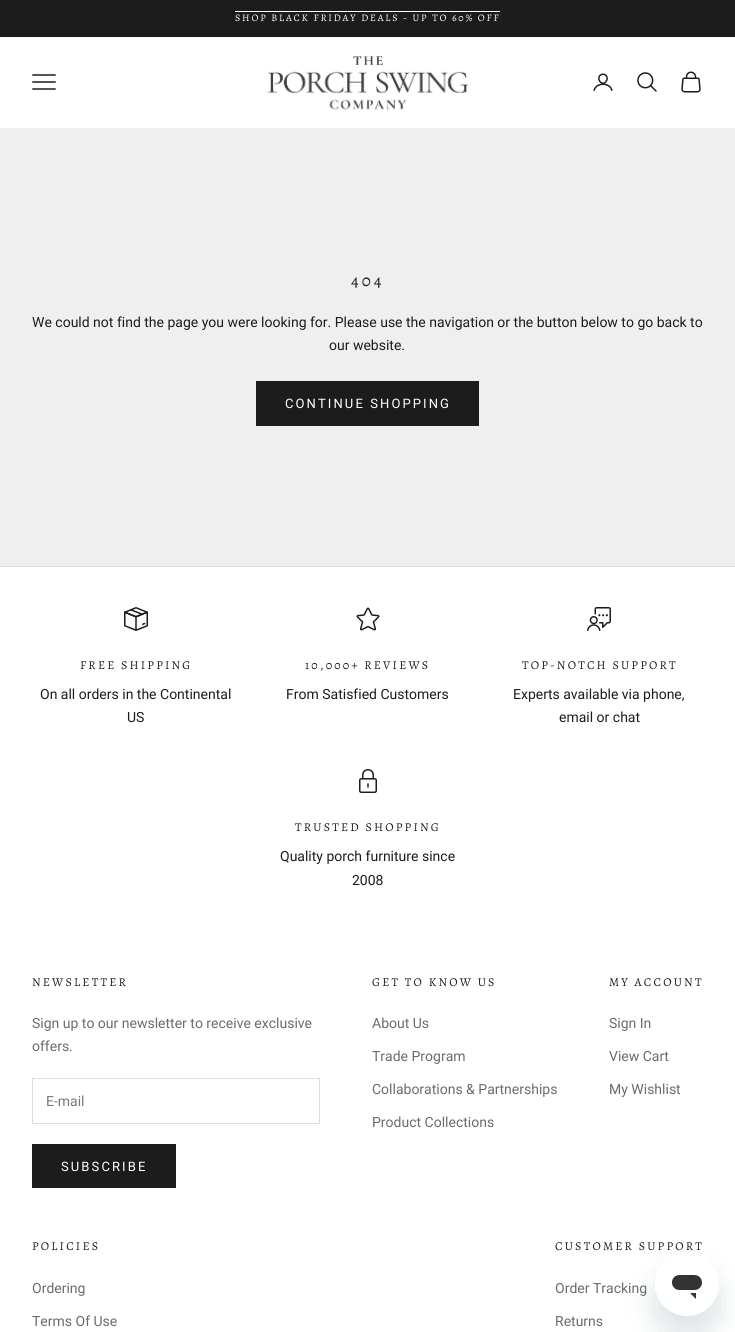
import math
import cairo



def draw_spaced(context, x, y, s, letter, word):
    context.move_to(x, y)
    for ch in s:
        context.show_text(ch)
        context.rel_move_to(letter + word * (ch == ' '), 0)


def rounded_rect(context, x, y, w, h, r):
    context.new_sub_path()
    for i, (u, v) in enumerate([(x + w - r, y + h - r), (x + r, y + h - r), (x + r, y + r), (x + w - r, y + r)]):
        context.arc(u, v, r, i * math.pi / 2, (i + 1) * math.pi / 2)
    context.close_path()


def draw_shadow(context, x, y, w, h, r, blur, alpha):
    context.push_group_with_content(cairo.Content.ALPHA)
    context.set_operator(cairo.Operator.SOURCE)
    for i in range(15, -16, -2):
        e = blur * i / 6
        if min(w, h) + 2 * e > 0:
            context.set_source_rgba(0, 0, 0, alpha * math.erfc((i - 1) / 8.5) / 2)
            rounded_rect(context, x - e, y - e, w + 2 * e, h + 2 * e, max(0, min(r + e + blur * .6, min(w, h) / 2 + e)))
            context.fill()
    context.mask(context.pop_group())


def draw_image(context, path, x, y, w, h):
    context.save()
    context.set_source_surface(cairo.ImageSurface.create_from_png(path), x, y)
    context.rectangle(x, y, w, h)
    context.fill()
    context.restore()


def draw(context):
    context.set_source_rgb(239 / 255, 239 / 255, 239 / 255)
    context.paint()
    context.set_source_rgb(28 / 255, 28 / 255, 28 / 255)
    context.rectangle(0, 0, 735, 37)
    context.fill()
    context.set_source_rgb(1, 1, 1)
    context.rectangle(235, 11, 265, 1)
    context.fill()
    context.rectangle(0, 37, 735, 91)
    context.fill()
    context.new_path()
    context.move_to(33, 89)
    context.line_to(55, 89)
    context.move_to(33, 82)
    context.line_to(55, 82)
    context.move_to(33, 75)
    context.line_to(55, 75)
    context.set_source_rgb(28 / 255, 28 / 255, 28 / 255)
    context.set_line_width(1.5)
    context.set_line_cap(cairo.LineCap.SQUARE)
    context.stroke()
    draw_image(context, "images/1.png", 268, 56, 200, 54)
    draw_image(context, "images/2.png", 593, 73, 20, 18)
    draw_image(context, "images/3.png", 637, 72, 20, 20)
    draw_image(context, "images/4.png", 681, 71, 20, 22)
    context.rectangle(256.5, 381.5, 222, 44)
    context.fill_preserve()
    context.set_line_width(1)
    context.set_line_cap(cairo.LineCap.BUTT)
    context.stroke()
    context.set_source_rgb(1, 1, 1)
    context.rectangle(0, 567, 735, 765)
    context.fill()
    context.set_source_rgb(221 / 255, 221 / 255, 221 / 255)
    context.rectangle(0, 566, 735, 1)
    context.fill()
    draw_image(context, "images/5.png", 124, 607, 24, 24)
    draw_image(context, "images/6.png", 356, 607, 24, 24)
    draw_image(context, "images/7.png", 587, 607, 24, 24)
    draw_image(context, "images/8.png", 359, 769, 18, 24)
    context.rectangle(32.5, 1078.5, 287, 45)
    context.stroke()
    context.set_source_rgb(28 / 255, 28 / 255, 28 / 255)
    context.rectangle(32.5, 1144.5, 143, 43)
    context.fill_preserve()
    context.stroke()
    context.save()
    context.set_fill_rule(cairo.FillRule.EVEN_ODD)
    context.new_path()
    context.move_to(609, 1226)
    context.line_to(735, 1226)
    context.line_to(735, 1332)
    context.line_to(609, 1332)
    context.close_path()
    context.move_to(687, 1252)
    context.curve_to(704.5, 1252, 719, 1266.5, 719, 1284)
    context.curve_to(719, 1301.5, 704.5, 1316, 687, 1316)
    context.curve_to(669.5, 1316, 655, 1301.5, 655, 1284)
    context.curve_to(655, 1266.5, 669.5, 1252, 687, 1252)
    context.close_path()
    context.clip()
    context.set_source_rgb(23 / 255, 73 / 255, 77 / 255)
    draw_shadow(context, 655, 1272, 64, 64, 32, 15, 0.15)
    context.restore()
    draw_image(context, "images/9.png", 664, 1275, 46, 37)
    context.select_font_face("Alegreya")
    context.set_font_size(10)
    context.set_source_rgb(1, 1, 1)
    draw_spaced(context, 235, 21, "SHOP BLACK FRIDAY DEALS - UP TO 60% OFF", 1.8, 0)
    context.set_font_size(17)
    context.set_source_rgb(28 / 255, 28 / 255, 28 / 255)
    draw_spaced(context, 351, 286, "404", 3, 0)
    context.select_font_face("Roboto")
    context.set_font_size(14)
    context.move_to(32, 327)
    context.show_text("We could not find the page you were looking for. Please use the navigation or the button below to go back to")
    context.move_to(329, 350)
    context.show_text("our website.")
    context.set_font_size(13)
    context.set_source_rgb(1, 1, 1)
    draw_spaced(context, 285, 408, "CONTINUE SHOPPING", 2.1, 0)
    context.select_font_face("Alegreya")
    context.set_font_size(12)
    context.set_source_rgb(28 / 255, 28 / 255, 28 / 255)
    draw_spaced(context, 80, 669, "FREE SHIPPING", 2.2, 0)
    context.select_font_face("Roboto")
    context.set_font_size(14)
    context.move_to(40, 699)
    context.show_text("On all orders in the Continental")
    context.move_to(127, 722)
    context.show_text("US")
    context.select_font_face("Alegreya")
    context.set_font_size(12)
    draw_spaced(context, 305, 669, "10,000+ REVIEWS", 2.2, 0)
    context.select_font_face("Roboto")
    context.set_font_size(14)
    context.move_to(286, 699)
    context.show_text("From Satisfied Customers")
    context.select_font_face("Alegreya")
    context.set_font_size(12)
    draw_spaced(context, 522, 669, "TOP-NOTCH SUPPORT", 2.2, 0)
    context.select_font_face("Roboto")
    context.set_font_size(14)
    context.move_to(513, 699)
    context.show_text("Experts available via phone,")
    context.move_to(559, 722)
    context.show_text("email or chat")
    context.select_font_face("Alegreya")
    context.set_font_size(12)
    draw_spaced(context, 295, 831, "TRUSTED SHOPPING", 2.2, 0)
    context.select_font_face("Roboto")
    context.set_font_size(14)
    context.move_to(280, 861)
    context.show_text("Quality porch furniture since")
    context.move_to(352, 885)
    context.show_text("2008")
    context.select_font_face("Alegreya")
    context.set_font_size(12)
    draw_spaced(context, 32, 986, "NEWSLETTER", 2.2, 0)
    context.select_font_face("Roboto")
    context.set_font_size(14)
    context.set_source_rgb(107 / 255, 107 / 255, 107 / 255)
    context.move_to(32, 1028)
    context.show_text("Sign up to our newsletter to receive exclusive")
    context.move_to(32, 1051)
    context.show_text("offers.")
    context.set_source_rgb(119 / 255, 119 / 255, 119 / 255)
    context.move_to(46, 1106)
    context.show_text("E-mail")
    context.set_font_size(13)
    context.set_source_rgb(1, 1, 1)
    draw_spaced(context, 61, 1171, "SUBSCRIBE", 2.1, 0)
    context.select_font_face("Alegreya")
    context.set_font_size(12)
    context.set_source_rgb(28 / 255, 28 / 255, 28 / 255)
    draw_spaced(context, 372, 986, "GET TO KNOW US", 2.2, 0)
    context.select_font_face("Roboto")
    context.set_font_size(14)
    context.set_source_rgb(107 / 255, 107 / 255, 107 / 255)
    context.move_to(372, 1028)
    context.show_text("About Us")
    context.move_to(372, 1061)
    context.show_text("Trade Program")
    context.move_to(372, 1094)
    context.show_text("Collaborations & Partnerships")
    context.move_to(372, 1127)
    context.show_text("Product Collections")
    context.select_font_face("Alegreya")
    context.set_font_size(12)
    context.set_source_rgb(28 / 255, 28 / 255, 28 / 255)
    draw_spaced(context, 609, 986, "MY ACCOUNT", 2.2, 0)
    context.select_font_face("Roboto")
    context.set_font_size(14)
    context.set_source_rgb(107 / 255, 107 / 255, 107 / 255)
    context.move_to(609, 1028)
    context.show_text("Sign In")
    context.move_to(609, 1061)
    context.show_text("View Cart")
    context.move_to(609, 1094)
    context.show_text("My Wishlist")
    context.select_font_face("Alegreya")
    context.set_font_size(12)
    context.set_source_rgb(28 / 255, 28 / 255, 28 / 255)
    draw_spaced(context, 32, 1250, "POLICIES", 2.2, 0)
    context.select_font_face("Roboto")
    context.set_font_size(14)
    context.set_source_rgb(107 / 255, 107 / 255, 107 / 255)
    context.move_to(32, 1293)
    context.show_text("Ordering")
    context.move_to(32, 1326)
    context.show_text("Terms Of Use")
    context.select_font_face("Alegreya")
    context.set_font_size(12)
    context.set_source_rgb(28 / 255, 28 / 255, 28 / 255)
    draw_spaced(context, 555, 1250, "CUSTOMER SUPPORT", 2.2, 0)
    context.select_font_face("Roboto")
    context.set_font_size(14)
    context.set_source_rgb(107 / 255, 107 / 255, 107 / 255)
    context.move_to(555, 1293)
    context.show_text("Order Tracking")
    context.move_to(555, 1326)
    context.show_text("Returns")


surface = cairo.ImageSurface(cairo.Format.RGB24, 735, 1332)
context = cairo.Context(surface)
options = cairo.FontOptions()
options.set_hint_metrics(cairo.HintMetrics.OFF)
options.set_hint_style(cairo.HintStyle.NONE)
context.set_font_options(options)
context.set_miter_limit(4)
draw(context)
surface.write_to_png("out.png")
